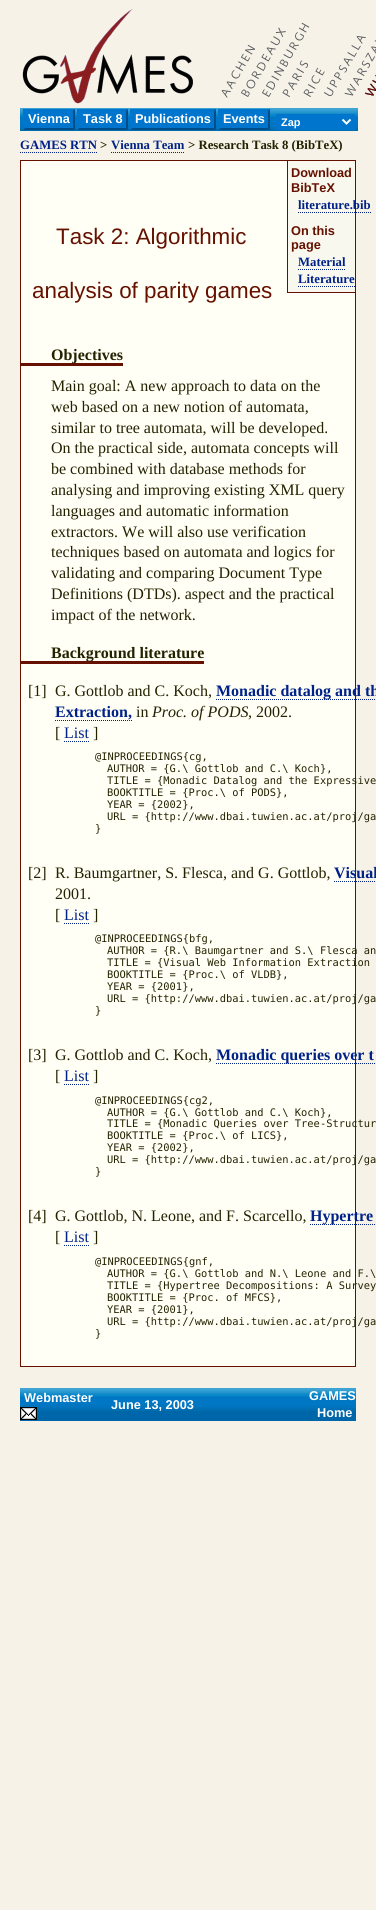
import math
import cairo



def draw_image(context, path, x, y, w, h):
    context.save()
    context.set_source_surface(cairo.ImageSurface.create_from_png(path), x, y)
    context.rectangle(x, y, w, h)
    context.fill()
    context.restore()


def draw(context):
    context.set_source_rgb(246 / 255, 242 / 255, 231 / 255)
    context.paint()
    draw_image(context, "images/1.png", 22, 9, 171, 95)
    draw_image(context, "images/2.png", 221, 22, 155, 76)
    draw_image(context, "images/3.png", 20, 108, 338, 23)
    context.set_source_rgb(0, 117 / 255, 205 / 255)
    context.rectangle(23, 109, 52, 21)
    context.fill()
    context.set_source_rgb(0, 78 / 255, 137 / 255)
    context.new_path()
    context.move_to(75, 109)
    context.line_to(75, 130)
    context.line_to(73, 128)
    context.line_to(73, 111)
    context.close_path()
    context.fill()
    context.new_path()
    context.move_to(75, 130)
    context.line_to(23, 130)
    context.line_to(25, 128)
    context.line_to(73, 128)
    context.close_path()
    context.fill()
    context.set_source_rgb(0, 117 / 255, 205 / 255)
    context.new_path()
    context.move_to(23, 130)
    context.line_to(23, 109)
    context.line_to(25, 111)
    context.line_to(25, 128)
    context.close_path()
    context.fill()
    context.rectangle(77, 109, 51, 21)
    context.fill()
    context.set_source_rgb(0, 78 / 255, 137 / 255)
    context.new_path()
    context.move_to(128, 109)
    context.line_to(128, 130)
    context.line_to(126, 128)
    context.line_to(126, 111)
    context.close_path()
    context.fill()
    context.new_path()
    context.move_to(128, 130)
    context.line_to(77, 130)
    context.line_to(79, 128)
    context.line_to(126, 128)
    context.close_path()
    context.fill()
    context.set_source_rgb(0, 117 / 255, 205 / 255)
    context.new_path()
    context.move_to(77, 130)
    context.line_to(77, 109)
    context.line_to(79, 111)
    context.line_to(79, 128)
    context.close_path()
    context.fill()
    context.rectangle(130, 109, 86, 21)
    context.fill()
    context.set_source_rgb(0, 78 / 255, 137 / 255)
    context.new_path()
    context.move_to(216, 109)
    context.line_to(216, 130)
    context.line_to(214, 128)
    context.line_to(214, 111)
    context.close_path()
    context.fill()
    context.new_path()
    context.move_to(216, 130)
    context.line_to(130, 130)
    context.line_to(132, 128)
    context.line_to(214, 128)
    context.close_path()
    context.fill()
    context.set_source_rgb(0, 117 / 255, 205 / 255)
    context.new_path()
    context.move_to(130, 130)
    context.line_to(130, 109)
    context.line_to(132, 111)
    context.line_to(132, 128)
    context.close_path()
    context.fill()
    context.rectangle(218, 109, 52, 21)
    context.fill()
    context.set_source_rgb(0, 78 / 255, 137 / 255)
    context.new_path()
    context.move_to(270, 109)
    context.line_to(270, 130)
    context.line_to(268, 128)
    context.line_to(268, 111)
    context.close_path()
    context.fill()
    context.new_path()
    context.move_to(270, 130)
    context.line_to(218, 130)
    context.line_to(220, 128)
    context.line_to(268, 128)
    context.close_path()
    context.fill()
    context.set_source_rgb(0, 117 / 255, 205 / 255)
    context.new_path()
    context.move_to(218, 130)
    context.line_to(218, 109)
    context.line_to(220, 111)
    context.line_to(220, 128)
    context.close_path()
    context.fill()
    context.rectangle(276, 114, 79, 16)
    context.fill()
    context.new_path()
    context.move_to(342.5, 119.5)
    context.line_to(346.5, 123.5)
    context.line_to(350.5, 119.5)
    context.set_source_rgb(1, 1, 1)
    context.stroke()
    context.new_path()
    context.move_to(20, 152.5)
    context.line_to(97, 152.5)
    context.set_source_rgb(0, 34 / 255, 136 / 255)
    context.set_line_width(1)
    context.set_dash([1, 1])
    context.stroke()
    context.new_path()
    context.move_to(111, 152.5)
    context.line_to(184, 152.5)
    context.stroke()
    context.set_source_rgb(1, 1, 246 / 255)
    context.rectangle(20.5, 160.5, 335, 1206)
    context.fill_preserve()
    context.set_source_rgb(102 / 255, 17 / 255, 0)
    context.set_dash([])
    context.stroke()
    context.set_source_rgb(248 / 255, 248 / 255, 239 / 255)
    context.rectangle(288, 161, 67, 131)
    context.fill()
    context.set_source_rgb(102 / 255, 17 / 255, 0)
    context.rectangle(287, 292, 68, 1)
    context.fill()
    context.rectangle(287, 161, 1, 132)
    context.fill()
    context.new_path()
    context.move_to(298, 212.5)
    context.line_to(371, 212.5)
    context.set_source_rgb(0, 34 / 255, 136 / 255)
    context.set_dash([1, 1])
    context.stroke()
    context.new_path()
    context.move_to(298, 269.5)
    context.line_to(346, 269.5)
    context.stroke()
    context.new_path()
    context.move_to(298, 286.5)
    context.line_to(355, 286.5)
    context.stroke()
    context.set_source_rgb(102 / 255, 17 / 255, 0)
    context.rectangle(21, 363, 102, 3)
    context.fill()
    context.rectangle(21, 661, 183, 3)
    context.fill()
    context.new_path()
    context.move_to(216, 699.5)
    context.line_to(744, 699.5)
    context.set_source_rgb(0, 34 / 255, 136 / 255)
    context.stroke()
    context.new_path()
    context.move_to(55, 720.5)
    context.line_to(132, 720.5)
    context.stroke()
    context.new_path()
    context.move_to(64, 741.5)
    context.line_to(89, 741.5)
    context.stroke()
    context.new_path()
    context.move_to(334, 881.5)
    context.line_to(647, 881.5)
    context.stroke()
    context.new_path()
    context.move_to(64, 923.5)
    context.line_to(89, 923.5)
    context.stroke()
    context.new_path()
    context.move_to(216, 1063.5)
    context.line_to(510, 1063.5)
    context.stroke()
    context.new_path()
    context.move_to(64, 1084.5)
    context.line_to(89, 1084.5)
    context.stroke()
    context.new_path()
    context.move_to(310, 1224.5)
    context.line_to(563, 1224.5)
    context.stroke()
    context.new_path()
    context.move_to(64, 1245.5)
    context.line_to(89, 1245.5)
    context.stroke()
    context.set_source_rgb(0, 102 / 255, 170 / 255)
    context.rectangle(20, 1411, 336, 10)
    context.fill()
    draw_image(context, "images/4.png", 20, 1388, 336, 23)
    draw_image(context, "images/5.png", 20, 1407, 17, 13)
    context.select_font_face("Liberation Sans", cairo.FontSlant.NORMAL, cairo.FontWeight.BOLD)
    context.set_font_size(12.75)
    context.set_source_rgb(1, 1, 1)
    context.move_to(28, 123)
    context.show_text("Vienna")
    context.move_to(83, 123)
    context.show_text("Task 8")
    context.move_to(135, 123)
    context.show_text("Publications")
    context.move_to(223, 123)
    context.show_text("Events")
    context.set_font_size(11)
    context.move_to(281, 126)
    context.show_text("Zap")
    context.select_font_face("Liberation Serif", cairo.FontSlant.NORMAL, cairo.FontWeight.BOLD)
    context.set_font_size(12.75)
    context.set_source_rgb(0, 34 / 255, 136 / 255)
    context.move_to(20, 149)
    context.show_text("GAMES RTN")
    context.set_source_rgb(34 / 255, 34 / 255, 0)
    context.move_to(100, 149)
    context.show_text(">")
    context.set_source_rgb(0, 34 / 255, 136 / 255)
    context.move_to(111, 149)
    context.show_text("Vienna Team")
    context.set_source_rgb(34 / 255, 34 / 255, 0)
    context.move_to(188, 149)
    context.show_text("> Research Task 8 (BibTeX)")
    context.select_font_face("Liberation Sans")
    context.set_font_size(22.4)
    context.set_source_rgb(102 / 255, 17 / 255, 0)
    context.move_to(56, 244)
    context.show_text("Task 2: Algorithmic")
    context.move_to(32, 298)
    context.show_text("analysis of parity games")
    context.select_font_face("Liberation Sans", cairo.FontSlant.NORMAL, cairo.FontWeight.BOLD)
    context.set_font_size(12.75)
    context.move_to(291, 177)
    context.show_text("Download")
    context.move_to(291, 192)
    context.show_text("BibTeX")
    context.select_font_face("Liberation Serif", cairo.FontSlant.NORMAL, cairo.FontWeight.BOLD)
    context.set_source_rgb(0, 34 / 255, 136 / 255)
    context.move_to(298, 209)
    context.show_text("literature.bib")
    context.select_font_face("Liberation Sans", cairo.FontSlant.NORMAL, cairo.FontWeight.BOLD)
    context.set_source_rgb(102 / 255, 17 / 255, 0)
    context.move_to(291, 235)
    context.show_text("On this")
    context.move_to(291, 249)
    context.show_text("page")
    context.select_font_face("Liberation Serif", cairo.FontSlant.NORMAL, cairo.FontWeight.BOLD)
    context.set_source_rgb(0, 34 / 255, 136 / 255)
    context.move_to(298, 266)
    context.show_text("Material")
    context.move_to(298, 283)
    context.show_text("Literature")
    context.set_font_size(16)
    context.set_source_rgb(34 / 255, 34 / 255, 0)
    context.move_to(51, 360)
    context.show_text("Objectives")
    context.select_font_face("Liberation Serif")
    context.move_to(51, 391)
    context.show_text("Main goal: A new approach to data on the")
    context.move_to(51, 412)
    context.show_text("web based on a new notion of automata,")
    context.move_to(51, 433)
    context.show_text("similar to tree automata, will be developed.")
    context.move_to(51, 453)
    context.show_text("On the practical side, automata concepts will")
    context.move_to(51, 474)
    context.show_text("be combined with database methods for")
    context.move_to(51, 495)
    context.show_text("analysing and improving existing XML query")
    context.move_to(51, 516)
    context.show_text("languages and automatic information")
    context.move_to(51, 537)
    context.show_text("extractors. We will also use verification")
    context.move_to(51, 557)
    context.show_text("techniques based on automata and logics for")
    context.move_to(51, 578)
    context.show_text("validating and comparing Document Type")
    context.move_to(51, 599)
    context.show_text("Definitions (DTDs). aspect and the practical")
    context.move_to(51, 620)
    context.show_text("impact of the network.")
    context.select_font_face("Liberation Serif", cairo.FontSlant.NORMAL, cairo.FontWeight.BOLD)
    context.move_to(51, 658)
    context.show_text("Background literature")
    context.select_font_face("Liberation Serif")
    context.move_to(28, 696)
    context.show_text("[1]")
    context.move_to(55, 696)
    context.show_text("G. Gottlob and C. Koch,")
    context.select_font_face("Liberation Serif", cairo.FontSlant.NORMAL, cairo.FontWeight.BOLD)
    context.set_source_rgb(0, 34 / 255, 136 / 255)
    context.move_to(216, 696)
    context.show_text("Monadic datalog and th")
    context.move_to(55, 717)
    context.show_text("Extraction,")
    context.select_font_face("Liberation Serif")
    context.set_source_rgb(34 / 255, 34 / 255, 0)
    context.move_to(136, 717)
    context.show_text("in")
    context.select_font_face("Liberation Serif", cairo.FontSlant.ITALIC)
    context.move_to(152, 717)
    context.show_text("Proc. of PODS")
    context.select_font_face("Liberation Serif")
    context.move_to(248, 717)
    context.show_text(", 2002.")
    context.move_to(55, 738)
    context.show_text("[")
    context.set_source_rgb(0, 34 / 255, 136 / 255)
    context.move_to(64, 738)
    context.show_text("List")
    context.set_source_rgb(34 / 255, 34 / 255, 0)
    context.move_to(93, 738)
    context.show_text("]")
    context.select_font_face("DejaVu Sans Mono")
    context.set_font_size(10.4)
    context.move_to(95, 760)
    context.show_text("@INPROCEEDINGS{cg,")
    context.move_to(107, 772)
    context.show_text("AUTHOR = {G.\\ Gottlob and C.\\ Koch},")
    context.move_to(107, 784)
    context.show_text("TITLE = {Monadic Datalog and the Expressive")
    context.move_to(107, 796)
    context.show_text("BOOKTITLE = {Proc.\\ of PODS},")
    context.move_to(107, 808)
    context.show_text("YEAR = {2002},")
    context.move_to(107, 820)
    context.show_text("URL = {http://www.dbai.tuwien.ac.at/proj/ga")
    context.move_to(95, 832)
    context.show_text("}")
    context.select_font_face("Liberation Serif")
    context.set_font_size(16)
    context.move_to(28, 878)
    context.show_text("[2]")
    context.move_to(55, 878)
    context.show_text("R. Baumgartner, S. Flesca, and G. Gottlob,")
    context.select_font_face("Liberation Serif", cairo.FontSlant.NORMAL, cairo.FontWeight.BOLD)
    context.set_source_rgb(0, 34 / 255, 136 / 255)
    context.move_to(334, 878)
    context.show_text("Visual")
    context.select_font_face("Liberation Serif")
    context.set_source_rgb(34 / 255, 34 / 255, 0)
    context.move_to(55, 899)
    context.show_text("2001.")
    context.move_to(55, 920)
    context.show_text("[")
    context.set_source_rgb(0, 34 / 255, 136 / 255)
    context.move_to(64, 920)
    context.show_text("List")
    context.set_source_rgb(34 / 255, 34 / 255, 0)
    context.move_to(93, 920)
    context.show_text("]")
    context.select_font_face("DejaVu Sans Mono")
    context.set_font_size(10.4)
    context.move_to(95, 942)
    context.show_text("@INPROCEEDINGS{bfg,")
    context.move_to(107, 954)
    context.show_text("AUTHOR = {R.\\ Baumgartner and S.\\ Flesca an")
    context.move_to(107, 966)
    context.show_text("TITLE = {Visual Web Information Extraction")
    context.move_to(107, 978)
    context.show_text("BOOKTITLE = {Proc.\\ of VLDB},")
    context.move_to(107, 990)
    context.show_text("YEAR = {2001},")
    context.move_to(107, 1002)
    context.show_text("URL = {http://www.dbai.tuwien.ac.at/proj/ga")
    context.move_to(95, 1014)
    context.show_text("}")
    context.select_font_face("Liberation Serif")
    context.set_font_size(16)
    context.move_to(28, 1060)
    context.show_text("[3]")
    context.move_to(55, 1060)
    context.show_text("G. Gottlob and C. Koch,")
    context.select_font_face("Liberation Serif", cairo.FontSlant.NORMAL, cairo.FontWeight.BOLD)
    context.set_source_rgb(0, 34 / 255, 136 / 255)
    context.move_to(216, 1060)
    context.show_text("Monadic queries over t")
    context.select_font_face("Liberation Serif")
    context.set_source_rgb(34 / 255, 34 / 255, 0)
    context.move_to(55, 1081)
    context.show_text("[")
    context.set_source_rgb(0, 34 / 255, 136 / 255)
    context.move_to(64, 1081)
    context.show_text("List")
    context.set_source_rgb(34 / 255, 34 / 255, 0)
    context.move_to(93, 1081)
    context.show_text("]")
    context.select_font_face("DejaVu Sans Mono")
    context.set_font_size(10.4)
    context.move_to(95, 1104)
    context.show_text("@INPROCEEDINGS{cg2,")
    context.move_to(107, 1116)
    context.show_text("AUTHOR = {G.\\ Gottlob and C.\\ Koch},")
    context.move_to(107, 1127)
    context.show_text("TITLE = {Monadic Queries over Tree-Structur")
    context.move_to(107, 1139)
    context.show_text("BOOKTITLE = {Proc.\\ of LICS},")
    context.move_to(107, 1151)
    context.show_text("YEAR = {2002},")
    context.move_to(107, 1163)
    context.show_text("URL = {http://www.dbai.tuwien.ac.at/proj/ga")
    context.move_to(95, 1175)
    context.show_text("}")
    context.select_font_face("Liberation Serif")
    context.set_font_size(16)
    context.move_to(28, 1221)
    context.show_text("[4]")
    context.move_to(55, 1221)
    context.show_text("G. Gottlob, N. Leone, and F. Scarcello,")
    context.select_font_face("Liberation Serif", cairo.FontSlant.NORMAL, cairo.FontWeight.BOLD)
    context.set_source_rgb(0, 34 / 255, 136 / 255)
    context.move_to(310, 1221)
    context.show_text("Hypertre")
    context.select_font_face("Liberation Serif")
    context.set_source_rgb(34 / 255, 34 / 255, 0)
    context.move_to(55, 1242)
    context.show_text("[")
    context.set_source_rgb(0, 34 / 255, 136 / 255)
    context.move_to(64, 1242)
    context.show_text("List")
    context.set_source_rgb(34 / 255, 34 / 255, 0)
    context.move_to(93, 1242)
    context.show_text("]")
    context.select_font_face("DejaVu Sans Mono")
    context.set_font_size(10.4)
    context.move_to(95, 1265)
    context.show_text("@INPROCEEDINGS{gnf,")
    context.move_to(107, 1277)
    context.show_text("AUTHOR = {G.\\ Gottlob and N.\\ Leone and F.\\")
    context.move_to(107, 1289)
    context.show_text("TITLE = {Hypertree Decompositions: A Survey")
    context.move_to(107, 1301)
    context.show_text("BOOKTITLE = {Proc. of MFCS},")
    context.move_to(107, 1313)
    context.show_text("YEAR = {2001},")
    context.move_to(107, 1325)
    context.show_text("URL = {http://www.dbai.tuwien.ac.at/proj/ga")
    context.move_to(95, 1337)
    context.show_text("}")
    context.select_font_face("Liberation Sans", cairo.FontSlant.NORMAL, cairo.FontWeight.BOLD)
    context.set_font_size(12.75)
    context.set_source_rgb(1, 1, 1)
    context.move_to(24, 1402)
    context.show_text("Webmaster")
    context.move_to(309, 1400)
    context.show_text("GAMES")
    context.move_to(317, 1417)
    context.show_text("Home")
    context.move_to(111, 1409)
    context.show_text("June 13, 2003")


surface = cairo.ImageSurface(cairo.Format.RGB24, 376, 1910)
context = cairo.Context(surface)
options = cairo.FontOptions()
options.set_hint_metrics(cairo.HintMetrics.OFF)
options.set_hint_style(cairo.HintStyle.NONE)
context.set_font_options(options)
context.set_miter_limit(4)
draw(context)
surface.write_to_png("out.png")
